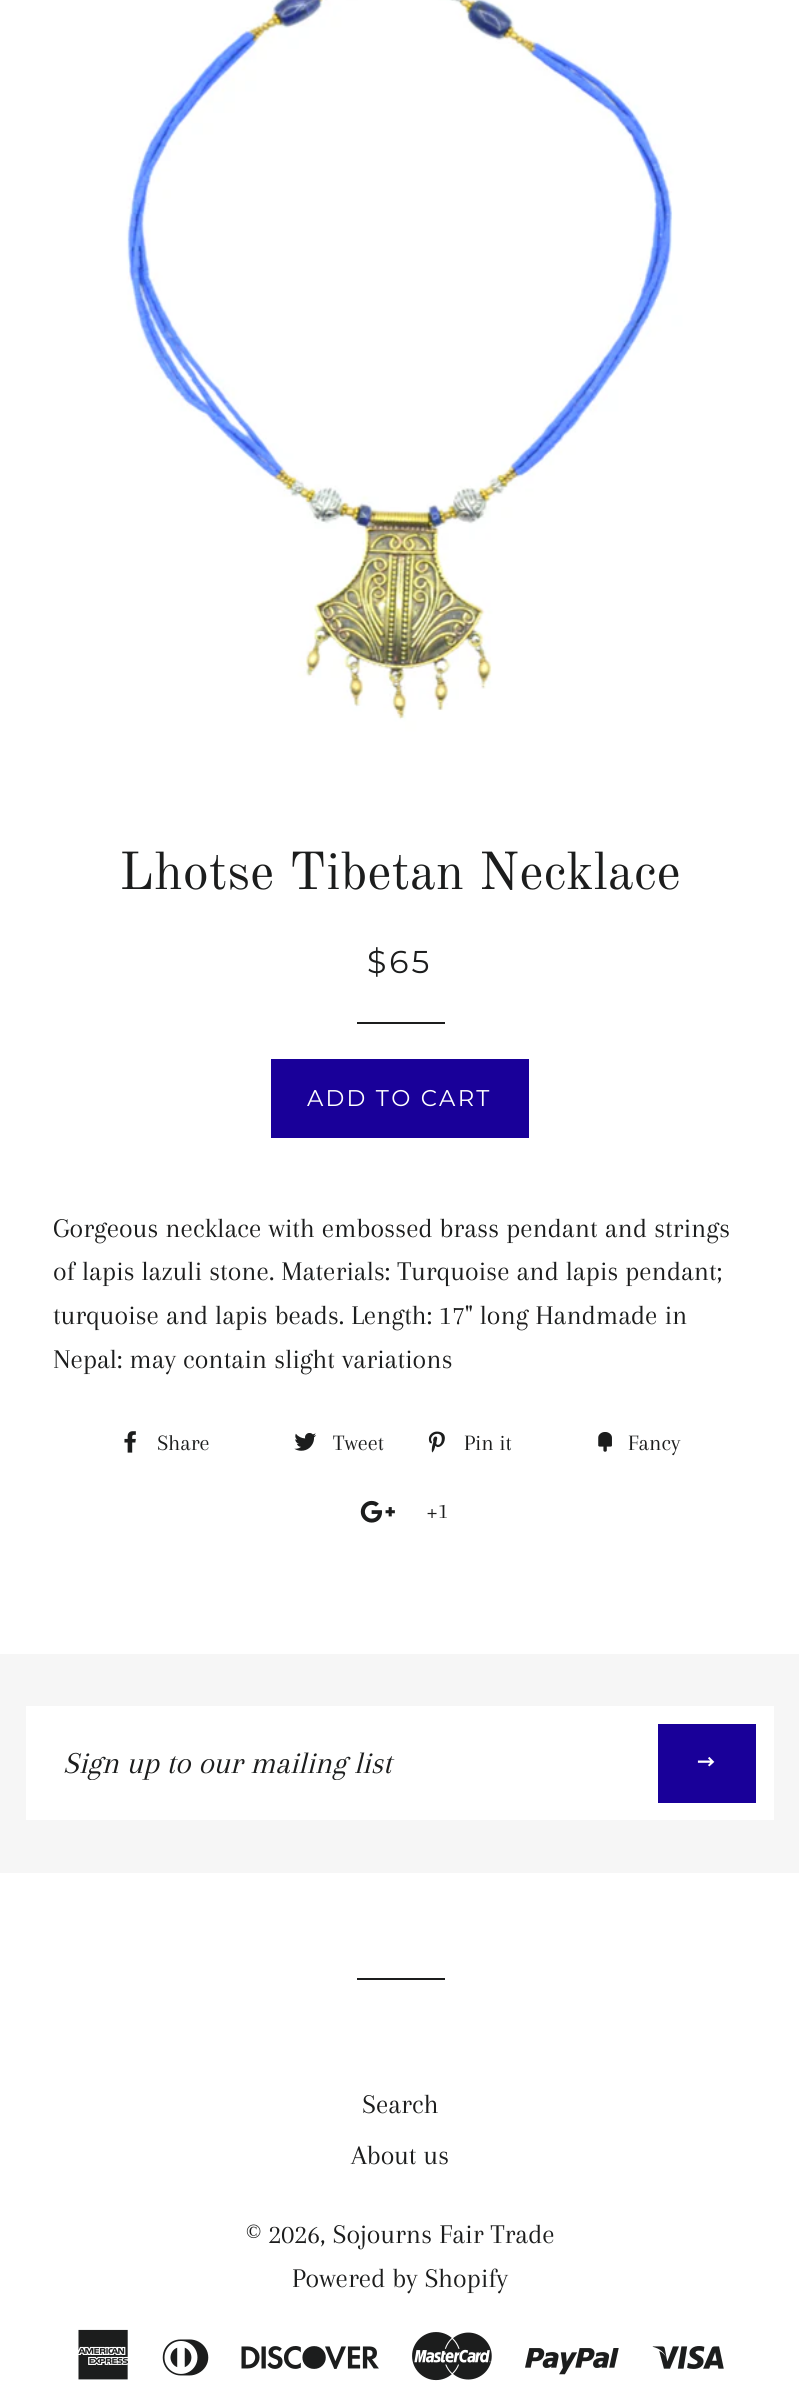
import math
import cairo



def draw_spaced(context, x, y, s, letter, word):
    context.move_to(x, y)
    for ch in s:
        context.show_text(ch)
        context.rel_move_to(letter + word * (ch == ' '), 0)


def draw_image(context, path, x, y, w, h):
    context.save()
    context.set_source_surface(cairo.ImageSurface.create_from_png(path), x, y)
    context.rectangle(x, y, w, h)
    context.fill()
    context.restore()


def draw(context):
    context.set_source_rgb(1, 1, 1)
    context.paint()
    draw_image(context, "images/1.png", 0, 0, 799, 742)
    context.set_source_rgb(28 / 255, 29 / 255, 29 / 255)
    context.rectangle(357, 1022, 88, 2)
    context.fill()
    context.set_source_rgb(25 / 255, 0, 153 / 255)
    context.rectangle(271, 1059, 258, 79)
    context.fill()
    draw_image(context, "images/2.png", 124, 1431, 12, 22)
    draw_image(context, "images/3.png", 294, 1433, 23, 18)
    draw_image(context, "images/4.png", 428, 1431, 17, 22)
    draw_image(context, "images/5.png", 598, 1432, 14, 20)
    draw_image(context, "images/6.png", 360, 1500, 35, 23)
    context.set_source_rgb(246 / 255, 246 / 255, 246 / 255)
    context.rectangle(0, 1654, 799, 219)
    context.fill()
    context.set_source_rgb(1, 1, 1)
    context.rectangle(26, 1706, 748, 114)
    context.fill()
    context.set_source_rgb(25 / 255, 0, 153 / 255)
    context.rectangle(658, 1724, 98, 79)
    context.fill()
    draw_image(context, "images/7.png", 697, 1757, 18, 10)
    context.set_source_rgb(28 / 255, 29 / 255, 29 / 255)
    context.rectangle(357, 1978, 88, 2)
    context.fill()
    draw_image(context, "images/8.png", 78, 2329, 50, 51)
    draw_image(context, "images/9.png", 162, 2339, 47, 37)
    draw_image(context, "images/10.png", 241, 2346, 138, 23)
    draw_image(context, "images/11.png", 412, 2332, 80, 49)
    draw_image(context, "images/12.png", 525, 2348, 94, 27)
    draw_image(context, "images/13.png", 652, 2346, 72, 23)
    context.select_font_face("Old Standard TT")
    context.set_font_size(52.5)
    context.move_to(119, 889)
    context.show_text("Lhotse Tibetan Necklace")
    context.select_font_face("Montserrat Thin")
    context.set_font_size(31.5)
    draw_spaced(context, 367, 973, "$65", 3, 0)
    context.set_font_size(22.75)
    context.set_source_rgb(1, 1, 1)
    draw_spaced(context, 307, 1106, "ADD TO CART", 2.25, 0)
    context.select_font_face("Arapey")
    context.set_font_size(28)
    context.set_source_rgb(28 / 255, 29 / 255, 29 / 255)
    context.move_to(53, 1237)
    context.show_text("Gorgeous necklace with embossed brass pendant and strings")
    context.move_to(53, 1280)
    context.show_text("of lapis lazuli stone. Materials: Turquoise and lapis pendant;")
    context.move_to(53, 1324)
    context.show_text("turquoise and lapis beads. Length: 17\" long Handmade in")
    context.move_to(53, 1368)
    context.show_text("Nepal: may contain slight variations")
    context.set_font_size(22.75)
    context.move_to(157, 1450)
    context.show_text("Share")
    context.move_to(333, 1450)
    context.show_text("Tweet")
    context.move_to(464, 1450)
    context.show_text("Pin it")
    context.move_to(628, 1450)
    context.show_text("Fancy")
    context.move_to(426, 1518)
    context.show_text("+1")
    context.save()
    context.rectangle(63, 1745, 576, 35)
    context.clip()
    context.select_font_face("Arapey", cairo.FontSlant.ITALIC)
    context.set_font_size(31.5)
    context.move_to(63, 1773)
    context.show_text("Sign up to our mailing list")
    context.restore()
    context.set_font_size(28)
    context.move_to(362, 2113)
    context.show_text("Search")
    context.move_to(351, 2164)
    context.show_text("About us")
    context.move_to(246, 2243)
    context.show_text("© 2026, Sojourns Fair Trade")
    context.move_to(292, 2287)
    context.show_text("Powered by Shopify")


surface = cairo.ImageSurface(cairo.Format.RGB24, 799, 2408)
context = cairo.Context(surface)
options = cairo.FontOptions()
options.set_hint_metrics(cairo.HintMetrics.OFF)
options.set_hint_style(cairo.HintStyle.NONE)
context.set_font_options(options)
context.set_miter_limit(4)
draw(context)
surface.write_to_png("out.png")
